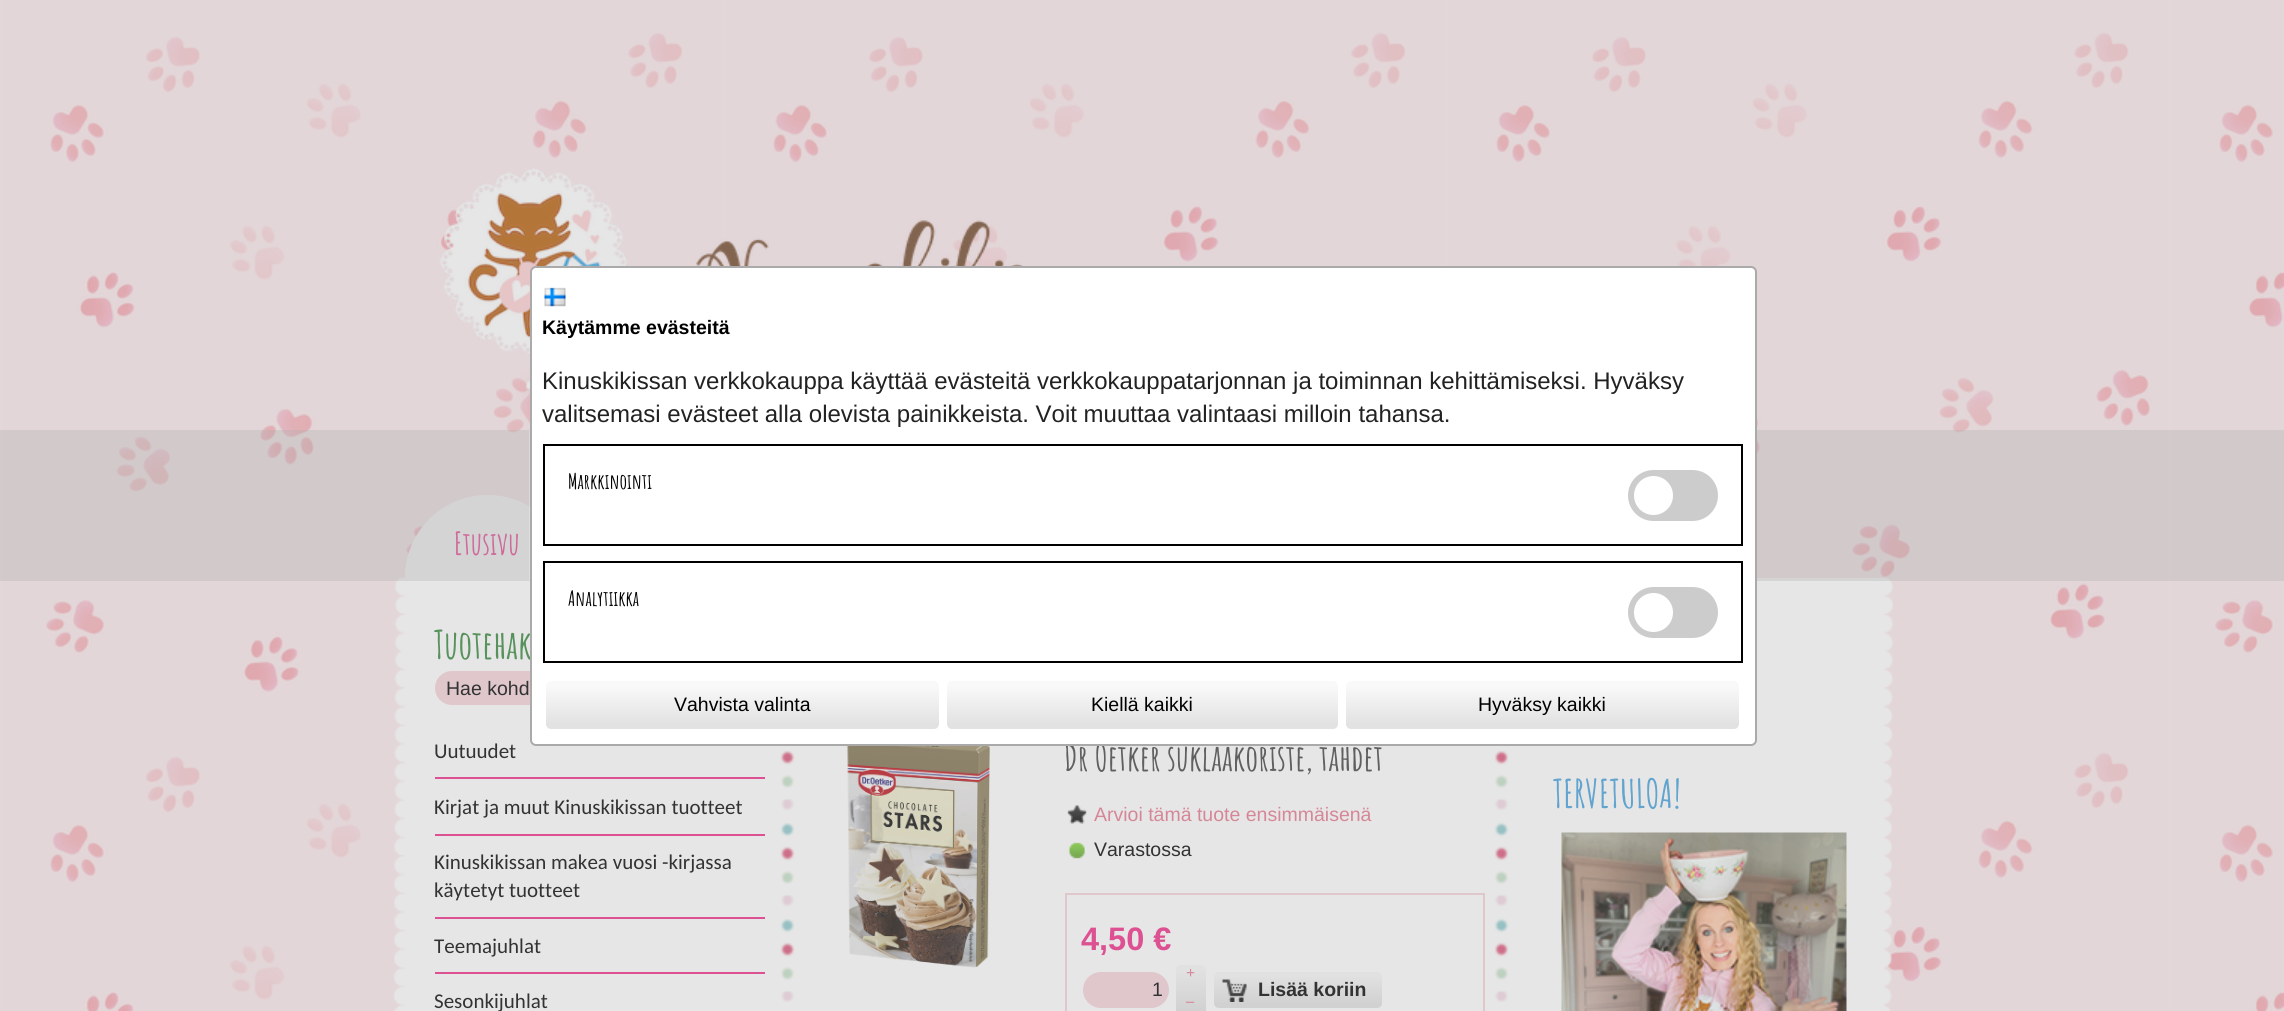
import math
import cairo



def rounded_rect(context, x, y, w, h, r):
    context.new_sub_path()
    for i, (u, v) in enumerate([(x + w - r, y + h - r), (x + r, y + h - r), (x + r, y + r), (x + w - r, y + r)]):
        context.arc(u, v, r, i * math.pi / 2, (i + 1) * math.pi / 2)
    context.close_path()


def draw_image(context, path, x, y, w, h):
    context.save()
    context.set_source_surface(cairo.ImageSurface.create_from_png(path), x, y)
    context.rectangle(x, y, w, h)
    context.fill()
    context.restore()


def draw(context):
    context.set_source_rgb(1, 1, 1)
    context.paint()
    draw_image(context, "images/1.png", 0, 0, 2284, 1011)
    draw_image(context, "images/4.png", 439, 168, 584, 248)
    context.set_source_rgb(230 / 255, 230 / 255, 230 / 255)
    context.new_path()
    context.move_to(487.5, 495)
    context.curve_to(533, 495, 570, 532, 570, 577.5)
    context.line_to(570, 578)
    context.line_to(405, 578)
    context.line_to(405, 577.5)
    context.curve_to(405, 532, 442, 495, 487.5, 495)
    context.close_path()
    context.fill()
    draw_image(context, "images/5.png", 393, 577, 12, 434)
    context.rectangle(405, 578, 360, 433)
    context.fill()
    context.set_source_rgb(223 / 255, 199 / 255, 204 / 255)
    rounded_rect(context, 435, 671, 320, 34, 17)
    context.fill()
    context.set_source_rgb(221 / 255, 80 / 255, 146 / 255)
    context.rectangle(435, 777, 330, 2)
    context.fill()
    context.rectangle(435, 834, 330, 2)
    context.fill()
    context.rectangle(435, 917, 330, 2)
    context.fill()
    context.rectangle(435, 972, 330, 2)
    context.fill()
    context.set_source_rgb(230 / 255, 230 / 255, 230 / 255)
    context.rectangle(765, 746, 759, 265)
    context.fill()
    draw_image(context, "images/6.png", 780, 750, 15, 252)
    draw_image(context, "images/7.png", 847, 746, 143, 222)
    draw_image(context, "images/8.png", 1067, 805, 20, 19)
    draw_image(context, "images/9.png", 1068, 842, 17, 17)
    context.rectangle(1066, 894, 418, 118)
    context.set_source_rgb(223 / 255, 199 / 255, 204 / 255)
    context.stroke()
    rounded_rect(context, 1083, 972, 86, 36, 18)
    context.fill()
    gradient = cairo.LinearGradient(1191, 965, 1191, 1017)
    gradient.add_color_stop_rgba(0.1, 225 / 255, 225 / 255, 225 / 255, 1)
    gradient.add_color_stop_rgba(0.9, 209 / 255, 209 / 255, 209 / 255, 1)
    context.set_source(gradient)
    rounded_rect(context, 1176, 965, 30, 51, 5)
    context.fill()
    gradient = cairo.LinearGradient(1298, 972, 1298, 1008)
    gradient.add_color_stop_rgba(0.1, 225 / 255, 225 / 255, 225 / 255, 1)
    gradient.add_color_stop_rgba(0.9, 209 / 255, 209 / 255, 209 / 255, 1)
    context.set_source(gradient)
    rounded_rect(context, 1214, 972, 168, 36, 5)
    context.fill()
    draw_image(context, "images/10.png", 1222, 979, 25, 23)
    draw_image(context, "images/11.png", 1494, 750, 15, 252)
    draw_image(context, "images/13.png", 1876, 577, 17, 434)
    context.set_source_rgb(230 / 255, 230 / 255, 230 / 255)
    context.rectangle(1524, 578, 360, 433)
    context.fill()
    draw_image(context, "images/12.png", 1561, 832, 286, 179)
    context.select_font_face("Amatic SC", cairo.FontSlant.NORMAL, cairo.FontWeight.BOLD)
    context.set_font_size(31.5)
    context.set_source_rgb(221 / 255, 80 / 255, 146 / 255)
    context.move_to(454, 555)
    context.show_text("Etusivu")
    context.set_source_rgba(171 / 255, 171 / 255, 171 / 255, 0.3)
    context.rectangle(0, 430, 2284, 151)
    context.fill()
    draw_image(context, "images/2.png", 529, 430, 1, 151)
    context.set_font_size(39)
    context.set_source_rgb(87 / 255, 146 / 255, 92 / 255)
    context.move_to(434, 659)
    context.show_text("Tuotehak")
    context.select_font_face("Liberation Sans")
    context.set_font_size(19.5)
    context.set_source_rgb(51 / 255, 51 / 255, 51 / 255)
    context.move_to(446, 695)
    context.show_text("Hae kohd")
    context.select_font_face("Carlito")
    context.set_font_size(21)
    context.move_to(434, 758)
    context.show_text("Uutuudet")
    context.move_to(434, 814)
    context.show_text("Kirjat ja muut Kinuskikissan tuotteet")
    context.move_to(434, 869)
    context.show_text("Kinuskikissan makea vuosi -kirjassa")
    context.move_to(434, 897)
    context.show_text("käytetyt tuotteet")
    context.move_to(434, 953)
    context.show_text("Teemajuhlat")
    context.move_to(434, 1008)
    context.show_text("Sesonkijuhlat")
    context.select_font_face("Amatic SC", cairo.FontSlant.NORMAL, cairo.FontWeight.BOLD)
    context.set_font_size(36)
    context.set_source_rgb(96 / 255, 96 / 255, 96 / 255)
    context.move_to(1064, 771)
    context.show_text("Dr Oetker suklaakoriste, tähdet")
    context.set_source_rgb(1, 1, 1)
    rounded_rect(context, 531, 267, 1225, 478, 5)
    context.fill_preserve()
    context.set_source_rgb(170 / 255, 170 / 255, 170 / 255)
    context.stroke()
    gradient = cairo.LinearGradient(1542, 681, 1542, 729)
    gradient.add_color_stop_rgba(0.1, 249 / 255, 249 / 255, 249 / 255, 1)
    gradient.add_color_stop_rgba(0.9, 226 / 255, 226 / 255, 226 / 255, 1)
    context.set_source(gradient)
    rounded_rect(context, 1346, 681, 393, 48, 5)
    context.fill()
    context.select_font_face("Liberation Sans")
    context.set_font_size(19.5)
    context.set_source_rgb(0, 0, 0)
    context.move_to(1478, 711)
    context.show_text("Hyväksy kaikki")
    gradient = cairo.LinearGradient(1142, 681, 1142, 729)
    gradient.add_color_stop_rgba(0.1, 249 / 255, 249 / 255, 249 / 255, 1)
    gradient.add_color_stop_rgba(0.9, 226 / 255, 226 / 255, 226 / 255, 1)
    context.set_source(gradient)
    rounded_rect(context, 947, 681, 391, 48, 5)
    context.fill()
    context.set_source_rgb(0, 0, 0)
    context.move_to(1091, 711)
    context.show_text("Kiellä kaikki")
    gradient = cairo.LinearGradient(743, 681, 743, 729)
    gradient.add_color_stop_rgba(0.1, 249 / 255, 249 / 255, 249 / 255, 1)
    gradient.add_color_stop_rgba(0.9, 226 / 255, 226 / 255, 226 / 255, 1)
    context.set_source(gradient)
    rounded_rect(context, 546, 681, 393, 48, 5)
    context.fill()
    context.set_source_rgb(0, 0, 0)
    context.move_to(674, 711)
    context.show_text("Vahvista valinta")
    context.rectangle(544, 562, 1198, 100)
    context.stroke()
    context.set_source_rgb(204 / 255, 204 / 255, 204 / 255)
    rounded_rect(context, 1628, 587, 90, 51, 25.5)
    context.fill()
    context.set_source_rgb(1, 1, 1)
    context.arc(1653.5, 612.5, 19.5, 0, 2 * math.pi)
    context.fill()
    context.rectangle(544, 445, 1198, 100)
    context.set_source_rgb(0, 0, 0)
    context.stroke()
    context.set_source_rgb(204 / 255, 204 / 255, 204 / 255)
    rounded_rect(context, 1628, 470, 90, 51, 25.5)
    context.fill()
    context.set_source_rgb(1, 1, 1)
    context.arc(1653.5, 495.5, 19.5, 0, 2 * math.pi)
    context.fill()
    context.select_font_face("Amatic SC", cairo.FontSlant.NORMAL, cairo.FontWeight.BOLD)
    context.set_font_size(21)
    context.set_source_rgb(0, 0, 0)
    context.move_to(568, 606)
    context.show_text("Analytiikka")
    context.move_to(568, 489)
    context.show_text("Markkinointi")
    context.select_font_face("Liberation Sans")
    context.set_font_size(24)
    context.set_source_rgb(34 / 255, 34 / 255, 34 / 255)
    context.move_to(542, 422)
    context.show_text("valitsemasi evästeet alla olevista painikkeista. Voit muuttaa valintaasi milloin tahansa.")
    context.move_to(542, 389)
    context.show_text("Kinuskikissan verkkokauppa käyttää evästeitä verkkokauppatarjonnan ja toiminnan kehittämiseksi. Hyväksy")
    context.select_font_face("Liberation Sans", cairo.FontSlant.NORMAL, cairo.FontWeight.BOLD)
    context.set_font_size(19.5)
    context.set_source_rgb(0, 0, 0)
    context.move_to(542, 334)
    context.show_text("Käytämme evästeitä")
    draw_image(context, "images/3.png", 544, 287, 22, 20)
    context.select_font_face("Liberation Sans")
    context.set_source_rgb(213 / 255, 135 / 255, 151 / 255)
    context.move_to(1094, 821)
    context.show_text("Arvioi tämä tuote ensimmäisenä")
    context.set_source_rgb(51 / 255, 51 / 255, 51 / 255)
    context.move_to(1094, 856)
    context.show_text("Varastossa")
    context.select_font_face("Liberation Sans", cairo.FontSlant.NORMAL, cairo.FontWeight.BOLD)
    context.set_font_size(32.5)
    context.set_source_rgb(221 / 255, 80 / 255, 146 / 255)
    context.move_to(1081, 950)
    context.show_text("4,50 €")
    context.select_font_face("Liberation Sans")
    context.set_font_size(19.5)
    context.set_source_rgb(51 / 255, 51 / 255, 51 / 255)
    context.move_to(1152, 996)
    context.show_text("1")
    context.select_font_face("Liberation Serif", cairo.FontSlant.NORMAL, cairo.FontWeight.BOLD)
    context.set_font_size(16)
    context.set_source_rgb(213 / 255, 135 / 255, 151 / 255)
    context.move_to(1186, 978)
    context.show_text("+")
    context.move_to(1186, 1006)
    context.show_text("–")
    context.select_font_face("Liberation Sans", cairo.FontSlant.NORMAL, cairo.FontWeight.BOLD)
    context.set_font_size(19.5)
    context.set_source_rgb(51 / 255, 51 / 255, 51 / 255)
    context.move_to(1258, 996)
    context.show_text("Lisää koriin")
    context.select_font_face("Amatic SC", cairo.FontSlant.NORMAL, cairo.FontWeight.BOLD)
    context.set_font_size(39)
    context.set_source_rgb(97 / 255, 164 / 255, 207 / 255)
    context.move_to(1553, 808)
    context.show_text("TERVETULOA!")


surface = cairo.ImageSurface(cairo.Format.RGB24, 2284, 1011)
context = cairo.Context(surface)
options = cairo.FontOptions()
options.set_hint_metrics(cairo.HintMetrics.OFF)
options.set_hint_style(cairo.HintStyle.NONE)
context.set_font_options(options)
context.set_miter_limit(4)
draw(context)
surface.write_to_png("out.png")
